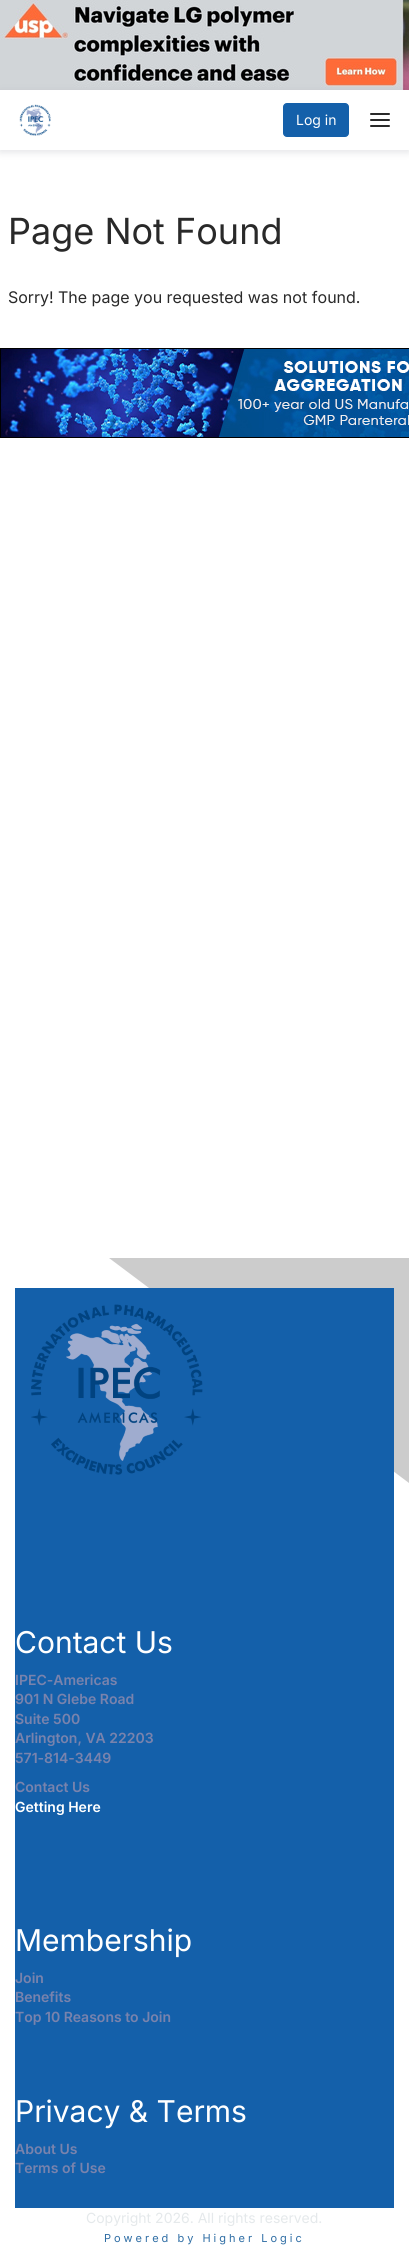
import math
import cairo



def draw_spaced(context, x, y, s, letter, word):
    context.move_to(x, y)
    for ch in s:
        context.show_text(ch)
        context.rel_move_to(letter + word * (ch == ' '), 0)


def rounded_rect(context, x, y, w, h, r):
    context.new_sub_path()
    for i, (u, v) in enumerate([(x + w - r, y + h - r), (x + r, y + h - r), (x + r, y + r), (x + w - r, y + r)]):
        context.arc(u, v, r, i * math.pi / 2, (i + 1) * math.pi / 2)
    context.close_path()


def draw_shadow(context, x, y, w, h, r, blur, alpha):
    context.push_group_with_content(cairo.Content.ALPHA)
    context.set_operator(cairo.Operator.SOURCE)
    for i in range(15, -16, -2):
        e = blur * i / 6
        if min(w, h) + 2 * e > 0:
            context.set_source_rgba(0, 0, 0, alpha * math.erfc((i - 1) / 8.5) / 2)
            rounded_rect(context, x - e, y - e, w + 2 * e, h + 2 * e, max(0, min(r + e + blur * .6, min(w, h) / 2 + e)))
            context.fill()
    context.mask(context.pop_group())


def draw_image(context, path, x, y, w, h):
    context.save()
    context.set_source_surface(cairo.ImageSurface.create_from_png(path), x, y)
    context.rectangle(x, y, w, h)
    context.fill()
    context.restore()


def draw(context):
    context.set_source_rgb(1, 1, 1)
    context.paint()
    draw_image(context, "images/1.png", 0, 0, 409, 90)
    context.save()
    context.set_fill_rule(cairo.FillRule.EVEN_ODD)
    context.new_path()
    context.move_to(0, 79)
    context.line_to(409, 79)
    context.line_to(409, 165)
    context.line_to(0, 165)
    context.close_path()
    context.move_to(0, 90)
    context.line_to(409, 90)
    context.line_to(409, 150)
    context.line_to(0, 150)
    context.close_path()
    context.clip()
    context.set_source_rgb(131 / 255, 135 / 255, 145 / 255)
    draw_shadow(context, 0, 92, 409, 60, 0, 4, 0.24)
    context.restore()
    draw_image(context, "images/2.png", 19, 104, 32, 32)
    context.set_source_rgb(20 / 255, 96 / 255, 170 / 255)
    rounded_rect(context, 283.5, 103.5, 65, 33, 3.5)
    context.fill_preserve()
    context.set_line_width(1)
    context.stroke()
    context.set_source_rgb(41 / 255, 41 / 255, 41 / 255)
    rounded_rect(context, 370, 113, 20, 2, 1)
    context.fill()
    rounded_rect(context, 370, 119, 20, 2, 1)
    context.fill()
    rounded_rect(context, 370, 125, 20, 2, 1)
    context.fill()
    draw_image(context, "images/3.png", 0, 348, 409, 90)
    context.set_source_rgb(204 / 255, 204 / 255, 204 / 255)
    context.new_path()
    context.move_to(409, 1258)
    context.line_to(409, 1483)
    context.line_to(109, 1258)
    context.close_path()
    context.fill()
    context.set_source_rgb(20 / 255, 96 / 255, 170 / 255)
    context.rectangle(15, 1288, 379, 920)
    context.fill()
    draw_image(context, "images/4.png", 31, 1304, 172, 171)
    context.select_font_face("Inter")
    context.set_font_size(14)
    context.set_source_rgb(1, 1, 1)
    context.move_to(296, 125)
    context.show_text("Log in")
    context.set_font_size(36)
    context.set_source_rgb(41 / 255, 41 / 255, 41 / 255)
    context.move_to(8, 244)
    context.show_text("Page Not Found")
    context.set_font_size(16)
    context.move_to(8, 303)
    context.show_text("Sorry! The page you requested was not found.")
    context.set_font_size(30)
    context.set_source_rgb(1, 1, 1)
    context.move_to(15, 1653)
    context.show_text("Contact Us")
    context.select_font_face("Inter SemiBold")
    context.set_font_size(14)
    context.set_source_rgb(121 / 255, 131 / 255, 173 / 255)
    context.move_to(15, 1685)
    context.show_text("IPEC-Americas")
    context.move_to(15, 1704)
    context.show_text("901 N Glebe Road")
    context.move_to(15, 1724)
    context.show_text("Suite 500")
    context.move_to(15, 1743)
    context.show_text("Arlington, VA 22203")
    context.move_to(15, 1763)
    context.show_text("571-814-3449")
    context.move_to(15, 1792)
    context.show_text("Contact Us")
    context.set_source_rgb(1, 1, 1)
    context.move_to(15, 1812)
    context.show_text("Getting Here")
    context.select_font_face("Inter")
    context.set_font_size(30)
    context.move_to(15, 1951)
    context.show_text("Membership")
    context.select_font_face("Inter SemiBold")
    context.set_font_size(14)
    context.set_source_rgb(121 / 255, 131 / 255, 173 / 255)
    context.move_to(15, 1983)
    context.show_text("Join")
    context.move_to(15, 2002)
    context.show_text("Benefits")
    context.move_to(15, 2022)
    context.show_text("Top 10 Reasons to Join")
    context.select_font_face("Inter")
    context.set_font_size(30)
    context.set_source_rgb(1, 1, 1)
    context.move_to(15, 2122)
    context.show_text("Privacy & Terms")
    context.select_font_face("Inter SemiBold")
    context.set_font_size(14)
    context.set_source_rgb(121 / 255, 131 / 255, 173 / 255)
    context.move_to(15, 2154)
    context.show_text("About Us")
    context.move_to(15, 2173)
    context.show_text("Terms of Use")
    context.select_font_face("Inter")
    context.set_source_rgb(229 / 255, 233 / 255, 235 / 255)
    context.move_to(86, 2223)
    context.show_text("Copyright 2026. All rights reserved.")
    context.set_font_size(11)
    context.set_source_rgb(46 / 255, 109 / 255, 164 / 255)
    draw_spaced(context, 104, 2242, "Powered by Higher Logic", 3, 0)


surface = cairo.ImageSurface(cairo.Format.RGB24, 409, 2262)
context = cairo.Context(surface)
options = cairo.FontOptions()
options.set_hint_metrics(cairo.HintMetrics.OFF)
options.set_hint_style(cairo.HintStyle.NONE)
context.set_font_options(options)
context.set_miter_limit(4)
draw(context)
surface.write_to_png("out.png")
